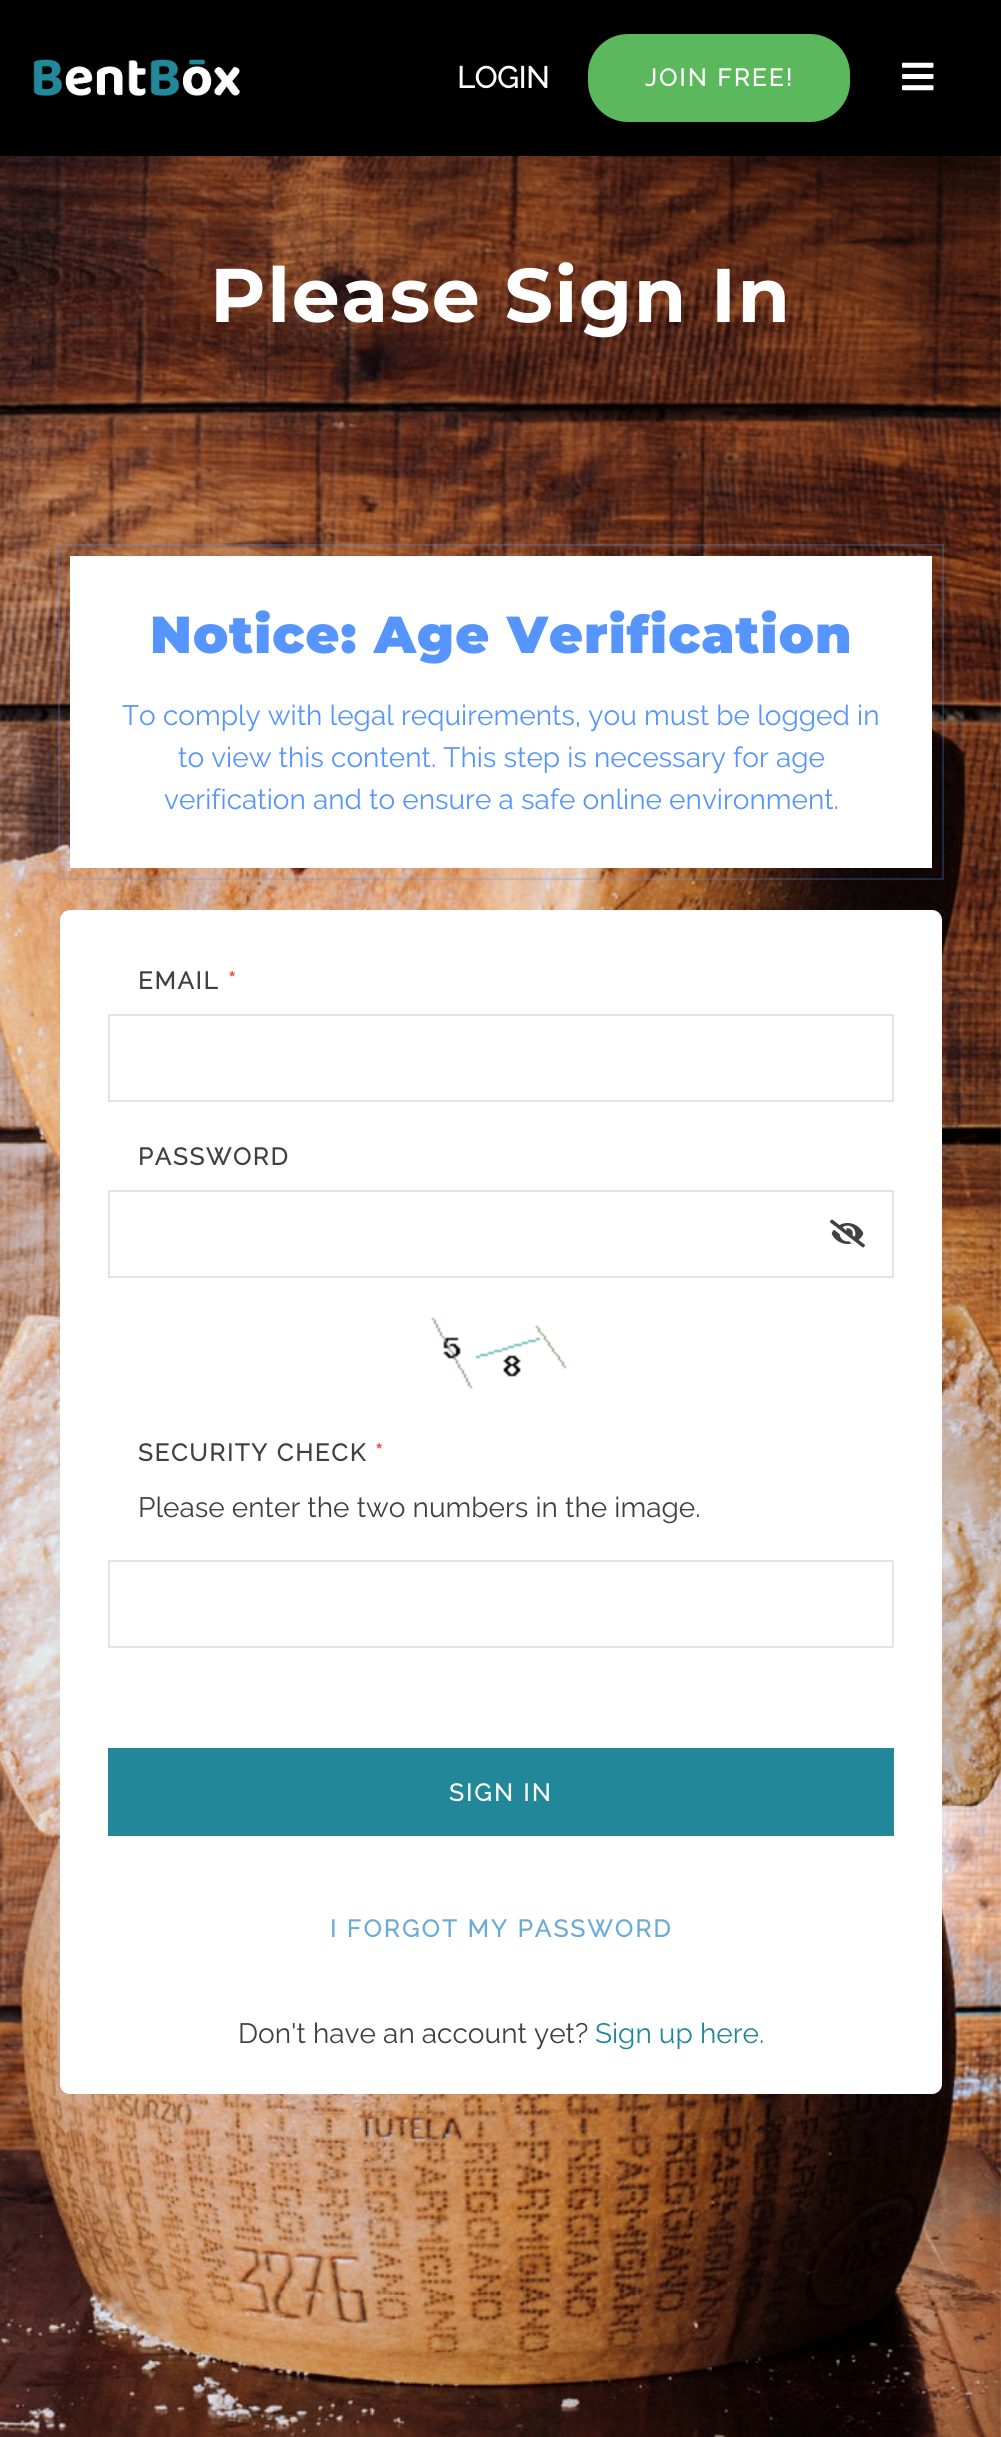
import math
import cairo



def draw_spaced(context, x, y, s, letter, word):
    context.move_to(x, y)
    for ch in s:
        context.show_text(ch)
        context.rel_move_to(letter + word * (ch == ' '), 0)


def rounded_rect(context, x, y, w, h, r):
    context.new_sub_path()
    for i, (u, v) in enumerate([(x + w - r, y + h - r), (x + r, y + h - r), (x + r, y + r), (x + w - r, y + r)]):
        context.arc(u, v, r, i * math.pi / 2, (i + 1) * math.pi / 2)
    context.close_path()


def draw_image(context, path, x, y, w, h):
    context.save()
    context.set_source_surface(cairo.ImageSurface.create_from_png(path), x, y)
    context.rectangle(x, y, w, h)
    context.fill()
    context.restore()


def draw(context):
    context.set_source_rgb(1, 1, 1)
    context.paint()
    draw_image(context, "images/1.png", 0, 156, 1001, 2281)
    context.set_source_rgb(0, 0, 0)
    context.rectangle(0, 0, 1001, 156)
    context.fill()
    draw_image(context, "images/2.png", 33, 59, 208, 38)
    context.set_source_rgb(92 / 255, 184 / 255, 92 / 255)
    rounded_rect(context, 588, 34, 262, 88, 40)
    context.fill()
    draw_image(context, "images/3.png", 902, 62, 32, 29)
    context.rectangle(59, 545, 884, 334)
    context.set_source_rgba(86 / 255, 149 / 255, 254 / 255, 0.25)
    context.stroke()
    context.set_source_rgb(1, 1, 1)
    context.rectangle(70, 556, 862, 312)
    context.fill()
    rounded_rect(context, 60, 910, 882, 1184, 10)
    context.fill()
    context.rectangle(109, 1015, 784, 86)
    context.set_source_rgb(228 / 255, 228 / 255, 228 / 255)
    context.stroke()
    context.rectangle(109, 1191, 784, 86)
    context.stroke()
    draw_image(context, "images/4.png", 830, 1219, 35, 29)
    draw_image(context, "images/5.png", 431, 1317, 136, 72)
    context.rectangle(109, 1561, 784, 86)
    context.stroke()
    context.set_source_rgb(34 / 255, 136 / 255, 153 / 255)
    context.rectangle(108, 1748, 786, 88)
    context.fill()
    context.select_font_face("Raleway", cairo.FontSlant.NORMAL, cairo.FontWeight.BOLD)
    context.set_font_size(30)
    context.set_source_rgb(1, 1, 1)
    context.move_to(457, 88)
    context.show_text("LOGIN")
    context.set_font_size(24)
    draw_spaced(context, 645, 86, "JOIN FREE!", 2.4, 0)
    context.select_font_face("Montserrat", cairo.FontSlant.NORMAL, cairo.FontWeight.BOLD)
    context.set_font_size(76)
    draw_spaced(context, 210, 322, "Please Sign In", 1.6, 0)
    context.select_font_face("Montserrat Black")
    context.set_font_size(52)
    context.set_source_rgb(86 / 255, 149 / 255, 254 / 255)
    draw_spaced(context, 150, 653, "Notice: Age Verification", 1.1, 0)
    context.select_font_face("Raleway Thin")
    context.set_font_size(28)
    context.move_to(122, 725)
    context.show_text("To comply with legal requirements, you must be logged in")
    context.move_to(178, 767)
    context.show_text("to view this content. This step is necessary for age")
    context.move_to(164, 809)
    context.show_text("verification and to ensure a safe online environment.")
    context.select_font_face("Raleway", cairo.FontSlant.NORMAL, cairo.FontWeight.BOLD)
    context.set_font_size(24)
    context.set_source_rgb(64 / 255, 64 / 255, 64 / 255)
    draw_spaced(context, 138, 989, "EMAIL", 1.9, 0)
    context.set_source_rgb(1, 82 / 255, 82 / 255)
    draw_spaced(context, 228, 989, "*", 1.9, 0)
    context.set_source_rgb(64 / 255, 64 / 255, 64 / 255)
    draw_spaced(context, 138, 1165, "PASSWORD", 1.9, 0)
    draw_spaced(context, 138, 1461, "SECURITY CHECK", 1.9, 0)
    context.set_source_rgb(1, 82 / 255, 82 / 255)
    draw_spaced(context, 375, 1461, "*", 1.9, 0)
    context.select_font_face("Raleway Thin")
    context.set_font_size(28)
    context.set_source_rgb(64 / 255, 64 / 255, 64 / 255)
    context.move_to(138, 1517)
    context.show_text("Please enter the two numbers in the image.")
    context.select_font_face("Raleway", cairo.FontSlant.NORMAL, cairo.FontWeight.BOLD)
    context.set_font_size(24)
    context.set_source_rgb(1, 1, 1)
    draw_spaced(context, 449, 1801, "SIGN IN", 2.4, 0)
    context.set_source_rgb(107 / 255, 171 / 255, 214 / 255)
    draw_spaced(context, 330, 1937, "I FORGOT MY PASSWORD", 2.4, 0)
    context.select_font_face("Raleway Thin")
    context.set_font_size(28)
    context.set_source_rgb(64 / 255, 64 / 255, 64 / 255)
    context.move_to(238, 2043)
    context.show_text("Don't have an account yet?")
    context.set_source_rgb(34 / 255, 136 / 255, 153 / 255)
    context.move_to(595, 2043)
    context.show_text("Sign up here.")


surface = cairo.ImageSurface(cairo.Format.RGB24, 1001, 2437)
context = cairo.Context(surface)
options = cairo.FontOptions()
options.set_hint_metrics(cairo.HintMetrics.OFF)
options.set_hint_style(cairo.HintStyle.NONE)
context.set_font_options(options)
context.set_miter_limit(4)
draw(context)
surface.write_to_png("out.png")
